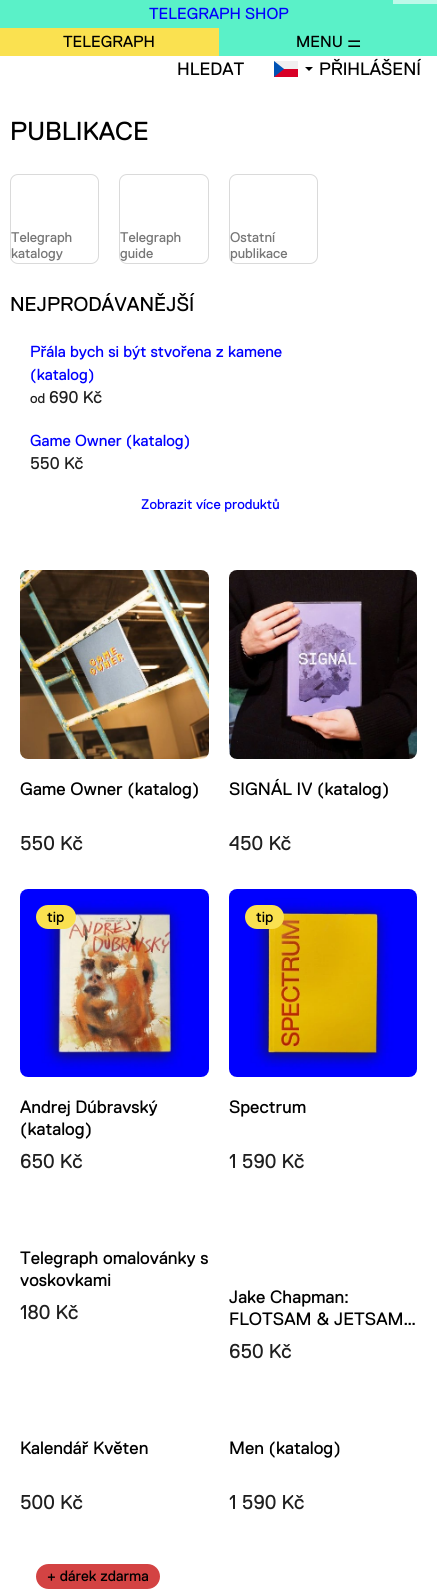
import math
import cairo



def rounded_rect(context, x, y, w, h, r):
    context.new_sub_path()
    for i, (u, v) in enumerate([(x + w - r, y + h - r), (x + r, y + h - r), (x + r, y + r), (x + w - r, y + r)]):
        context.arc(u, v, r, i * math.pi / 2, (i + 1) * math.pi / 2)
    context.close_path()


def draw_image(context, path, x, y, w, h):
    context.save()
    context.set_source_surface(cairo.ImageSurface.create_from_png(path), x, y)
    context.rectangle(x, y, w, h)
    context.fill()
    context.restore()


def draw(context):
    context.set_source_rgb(1, 1, 1)
    context.paint()
    context.set_source_rgb(90 / 255, 241 / 255, 200 / 255)
    context.rectangle(0, 0, 437, 28)
    context.fill()
    context.set_source_rgb(250 / 255, 225 / 255, 80 / 255)
    context.rectangle(0, 28, 219, 28)
    context.fill()
    context.set_source_rgb(90 / 255, 241 / 255, 200 / 255)
    context.rectangle(219, 28, 218, 28)
    context.fill()
    context.set_source_rgb(189 / 255, 249 / 255, 233 / 255)
    context.rectangle(393, 0, 44, 4)
    context.fill()
    draw_image(context, "images/1.png", 274, 61, 24, 16)
    context.set_source_rgb(0, 0, 0)
    context.new_path()
    context.move_to(305, 67)
    context.line_to(313, 67)
    context.line_to(309, 71)
    context.close_path()
    context.fill()
    rounded_rect(context, 10.5, 174.5, 88, 89, 7.5)
    context.set_source_rgb(218 / 255, 218 / 255, 218 / 255)
    context.set_line_width(1)
    context.stroke()
    rounded_rect(context, 119.5, 174.5, 89, 89, 7.5)
    context.stroke()
    rounded_rect(context, 229.5, 174.5, 88, 89, 7.5)
    context.stroke()
    draw_image(context, "images/2.png", 20, 570, 189, 189)
    draw_image(context, "images/3.png", 229, 570, 188, 189)
    draw_image(context, "images/4.png", 20, 889, 189, 188)
    context.set_source_rgb(250 / 255, 225 / 255, 80 / 255)
    rounded_rect(context, 36, 905, 40, 24, 12)
    context.fill()
    draw_image(context, "images/5.png", 229, 889, 188, 188)
    rounded_rect(context, 245, 905, 39, 24, 12)
    context.fill()
    context.set_source_rgb(211 / 255, 67 / 255, 67 / 255)
    rounded_rect(context, 36, 1564, 124, 25, 12.5)
    context.fill()
    context.select_font_face("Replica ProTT")
    context.set_font_size(16)
    context.set_source_rgb(0, 0, 254 / 255)
    context.move_to(149, 19)
    context.show_text("TELEGRAPH SHOP")
    context.set_source_rgb(0, 0, 0)
    context.move_to(63, 47)
    context.show_text("TELEGRAPH")
    context.move_to(296, 47)
    context.show_text("MENU")
    context.select_font_face("DejaVu Sans")
    context.move_to(347, 47)
    context.show_text("⚌")
    context.select_font_face("Replica ProTT")
    context.set_font_size(17.9)
    context.move_to(177, 75)
    context.show_text("HLEDAT")
    context.move_to(319, 75)
    context.show_text("PŘIHLÁŠENÍ")
    context.set_font_size(26)
    context.move_to(10, 140)
    context.show_text("PUBLIKACE")
    context.set_font_size(14)
    context.set_source_rgb(118 / 255, 118 / 255, 118 / 255)
    context.move_to(11, 242)
    context.show_text("Telegraph")
    context.move_to(11, 258)
    context.show_text("katalogy")
    context.move_to(120, 242)
    context.show_text("Telegraph")
    context.move_to(120, 258)
    context.show_text("guide")
    context.move_to(230, 242)
    context.show_text("Ostatní")
    context.move_to(230, 258)
    context.show_text("publikace")
    context.set_font_size(20)
    context.set_source_rgb(0, 0, 0)
    context.move_to(10, 311)
    context.show_text("NEJPRODÁVANĚJŠÍ")
    context.set_font_size(16)
    context.set_source_rgb(0, 0, 254 / 255)
    context.move_to(30, 357)
    context.show_text("Přála bych si být stvořena z kamene")
    context.move_to(30, 380)
    context.show_text("(katalog)")
    context.set_font_size(14)
    context.set_source_rgb(31 / 255, 31 / 255, 31 / 255)
    context.move_to(30, 403)
    context.show_text("od")
    context.set_font_size(17)
    context.move_to(49, 403)
    context.show_text("690 Kč")
    context.set_font_size(16)
    context.set_source_rgb(0, 0, 254 / 255)
    context.move_to(30, 446)
    context.show_text("Game Owner (katalog)")
    context.set_font_size(17)
    context.set_source_rgb(31 / 255, 31 / 255, 31 / 255)
    context.move_to(30, 469)
    context.show_text("550 Kč")
    context.set_font_size(14)
    context.set_source_rgb(0, 0, 254 / 255)
    context.move_to(141, 509)
    context.show_text("Zobrazit více produktů")
    context.set_font_size(17.9)
    context.set_source_rgb(0, 0, 0)
    context.move_to(20, 795)
    context.show_text("Game Owner (katalog)")
    context.set_font_size(20)
    context.set_source_rgb(31 / 255, 31 / 255, 31 / 255)
    context.move_to(20, 850)
    context.show_text("550 Kč")
    context.set_font_size(17.9)
    context.set_source_rgb(0, 0, 0)
    context.move_to(229, 795)
    context.show_text("SIGNÁL IV (katalog)")
    context.set_font_size(20)
    context.set_source_rgb(31 / 255, 31 / 255, 31 / 255)
    context.move_to(229, 850)
    context.show_text("450 Kč")
    context.set_font_size(15)
    context.set_source_rgb(0, 0, 0)
    context.move_to(47, 922)
    context.show_text("tip")
    context.set_font_size(17.9)
    context.move_to(20, 1113)
    context.show_text("Andrej Dúbravský")
    context.move_to(20, 1135)
    context.show_text("(katalog)")
    context.set_font_size(20)
    context.set_source_rgb(31 / 255, 31 / 255, 31 / 255)
    context.move_to(20, 1168)
    context.show_text("650 Kč")
    context.set_font_size(15)
    context.set_source_rgb(0, 0, 0)
    context.move_to(256, 922)
    context.show_text("tip")
    context.set_font_size(17.9)
    context.move_to(229, 1113)
    context.show_text("Spectrum")
    context.set_font_size(20)
    context.set_source_rgb(31 / 255, 31 / 255, 31 / 255)
    context.move_to(229, 1168)
    context.show_text("1 590 Kč")
    context.set_font_size(17.9)
    context.set_source_rgb(0, 0, 0)
    context.move_to(20, 1264)
    context.show_text("Telegraph omalovánky s")
    context.move_to(20, 1286)
    context.show_text("voskovkami")
    context.set_font_size(20)
    context.set_source_rgb(31 / 255, 31 / 255, 31 / 255)
    context.move_to(20, 1319)
    context.show_text("180 Kč")
    context.set_font_size(17.9)
    context.set_source_rgb(0, 0, 0)
    context.move_to(229, 1303)
    context.show_text("Jake Chapman:")
    context.move_to(229, 1325)
    context.show_text("FLOTSAM & JETSAM…")
    context.set_font_size(20)
    context.set_source_rgb(31 / 255, 31 / 255, 31 / 255)
    context.move_to(229, 1358)
    context.show_text("650 Kč")
    context.set_font_size(17.9)
    context.set_source_rgb(0, 0, 0)
    context.move_to(20, 1454)
    context.show_text("Kalendář Květen")
    context.set_font_size(20)
    context.set_source_rgb(31 / 255, 31 / 255, 31 / 255)
    context.move_to(20, 1509)
    context.show_text("500 Kč")
    context.set_font_size(17.9)
    context.set_source_rgb(0, 0, 0)
    context.move_to(229, 1454)
    context.show_text("Men (katalog)")
    context.set_font_size(20)
    context.set_source_rgb(31 / 255, 31 / 255, 31 / 255)
    context.move_to(229, 1509)
    context.show_text("1 590 Kč")
    context.set_font_size(15)
    context.set_source_rgb(0, 0, 0)
    context.move_to(47, 1581)
    context.show_text("+ dárek zdarma")


surface = cairo.ImageSurface(cairo.Format.RGB24, 437, 1590)
context = cairo.Context(surface)
options = cairo.FontOptions()
options.set_hint_metrics(cairo.HintMetrics.OFF)
options.set_hint_style(cairo.HintStyle.NONE)
context.set_font_options(options)
context.set_miter_limit(4)
draw(context)
surface.write_to_png("out.png")
